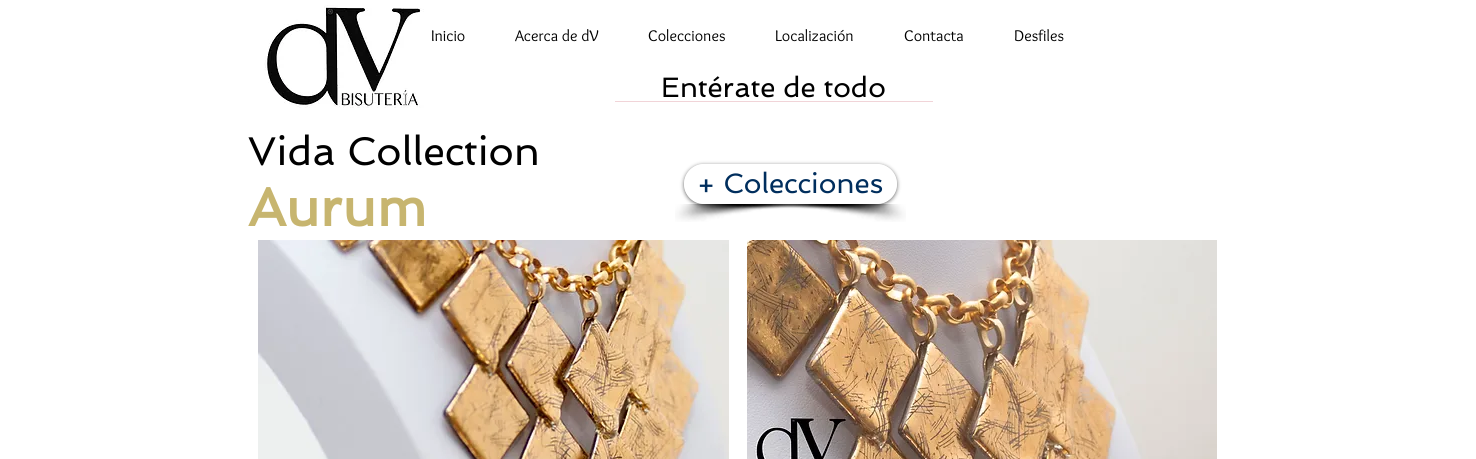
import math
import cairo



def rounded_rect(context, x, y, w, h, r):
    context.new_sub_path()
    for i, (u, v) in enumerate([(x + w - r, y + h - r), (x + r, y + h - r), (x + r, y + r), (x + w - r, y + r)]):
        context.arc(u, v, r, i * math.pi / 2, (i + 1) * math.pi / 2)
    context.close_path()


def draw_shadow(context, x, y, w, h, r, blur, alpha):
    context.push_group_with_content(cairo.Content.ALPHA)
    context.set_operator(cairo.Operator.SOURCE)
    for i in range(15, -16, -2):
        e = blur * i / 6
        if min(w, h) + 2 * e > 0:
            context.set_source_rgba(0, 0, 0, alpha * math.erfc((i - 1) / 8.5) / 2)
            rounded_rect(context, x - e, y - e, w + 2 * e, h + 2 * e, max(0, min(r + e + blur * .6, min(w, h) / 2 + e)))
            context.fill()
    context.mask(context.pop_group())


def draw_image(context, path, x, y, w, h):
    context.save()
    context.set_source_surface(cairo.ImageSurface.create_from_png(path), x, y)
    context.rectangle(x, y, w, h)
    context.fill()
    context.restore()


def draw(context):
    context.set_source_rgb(1, 1, 1)
    context.paint()
    draw_image(context, "images/1.png", 264, 5, 160, 103)
    context.set_source_rgb(241 / 255, 212 / 255, 216 / 255)
    context.rectangle(615, 101, 318, 1)
    context.fill()
    draw_image(context, "images/2.png", 675, 204, 154, 18)
    draw_image(context, "images/3.png", 770, 204, 136, 18)
    context.save()
    context.set_fill_rule(cairo.FillRule.EVEN_ODD)
    context.new_path()
    context.move_to(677, 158)
    context.line_to(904, 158)
    context.line_to(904, 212)
    context.line_to(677, 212)
    context.close_path()
    context.move_to(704, 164)
    context.line_to(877, 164)
    context.curve_to(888, 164, 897, 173, 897, 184)
    context.curve_to(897, 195, 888, 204, 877, 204)
    context.line_to(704, 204)
    context.curve_to(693, 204, 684, 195, 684, 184)
    context.curve_to(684, 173, 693, 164, 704, 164)
    context.close_path()
    context.clip()
    context.set_source_rgb(0, 0, 0)
    draw_shadow(context, 684, 165, 213, 40, 20, 2, 0.6)
    context.restore()
    draw_image(context, "images/4.png", 258, 240, 471, 219)
    draw_image(context, "images/5.png", 747, 240, 470, 219)
    context.select_font_face("Overlock")
    context.set_font_size(16)
    context.set_source_rgb(0, 0, 0)
    context.move_to(431, 41)
    context.show_text("Inicio")
    context.move_to(515, 41)
    context.show_text("Acerca de dV")
    context.move_to(648, 41)
    context.show_text("Colecciones")
    context.move_to(775, 41)
    context.show_text("Localización")
    context.move_to(904, 41)
    context.show_text("Contacta")
    context.move_to(1014, 41)
    context.show_text("Desfiles")
    context.select_font_face("Spinnaker")
    context.set_font_size(28)
    context.move_to(661, 97)
    context.show_text("Entérate de todo")
    context.set_font_size(40)
    context.move_to(248, 165)
    context.show_text("Vida Collection")
    context.select_font_face("Spinnaker", cairo.FontSlant.NORMAL, cairo.FontWeight.BOLD)
    context.set_font_size(54)
    context.set_source_rgb(199 / 255, 181 / 255, 111 / 255)
    context.move_to(248, 226)
    context.show_text("Aurum")
    context.select_font_face("Spinnaker")
    context.set_font_size(28)
    context.set_source_rgb(0, 46 / 255, 93 / 255)
    context.move_to(697, 193)
    context.show_text("+ Colecciones")


surface = cairo.ImageSurface(cairo.Format.RGB24, 1476, 459)
context = cairo.Context(surface)
options = cairo.FontOptions()
options.set_hint_metrics(cairo.HintMetrics.OFF)
options.set_hint_style(cairo.HintStyle.NONE)
context.set_font_options(options)
context.set_miter_limit(4)
draw(context)
surface.write_to_png("out.png")
